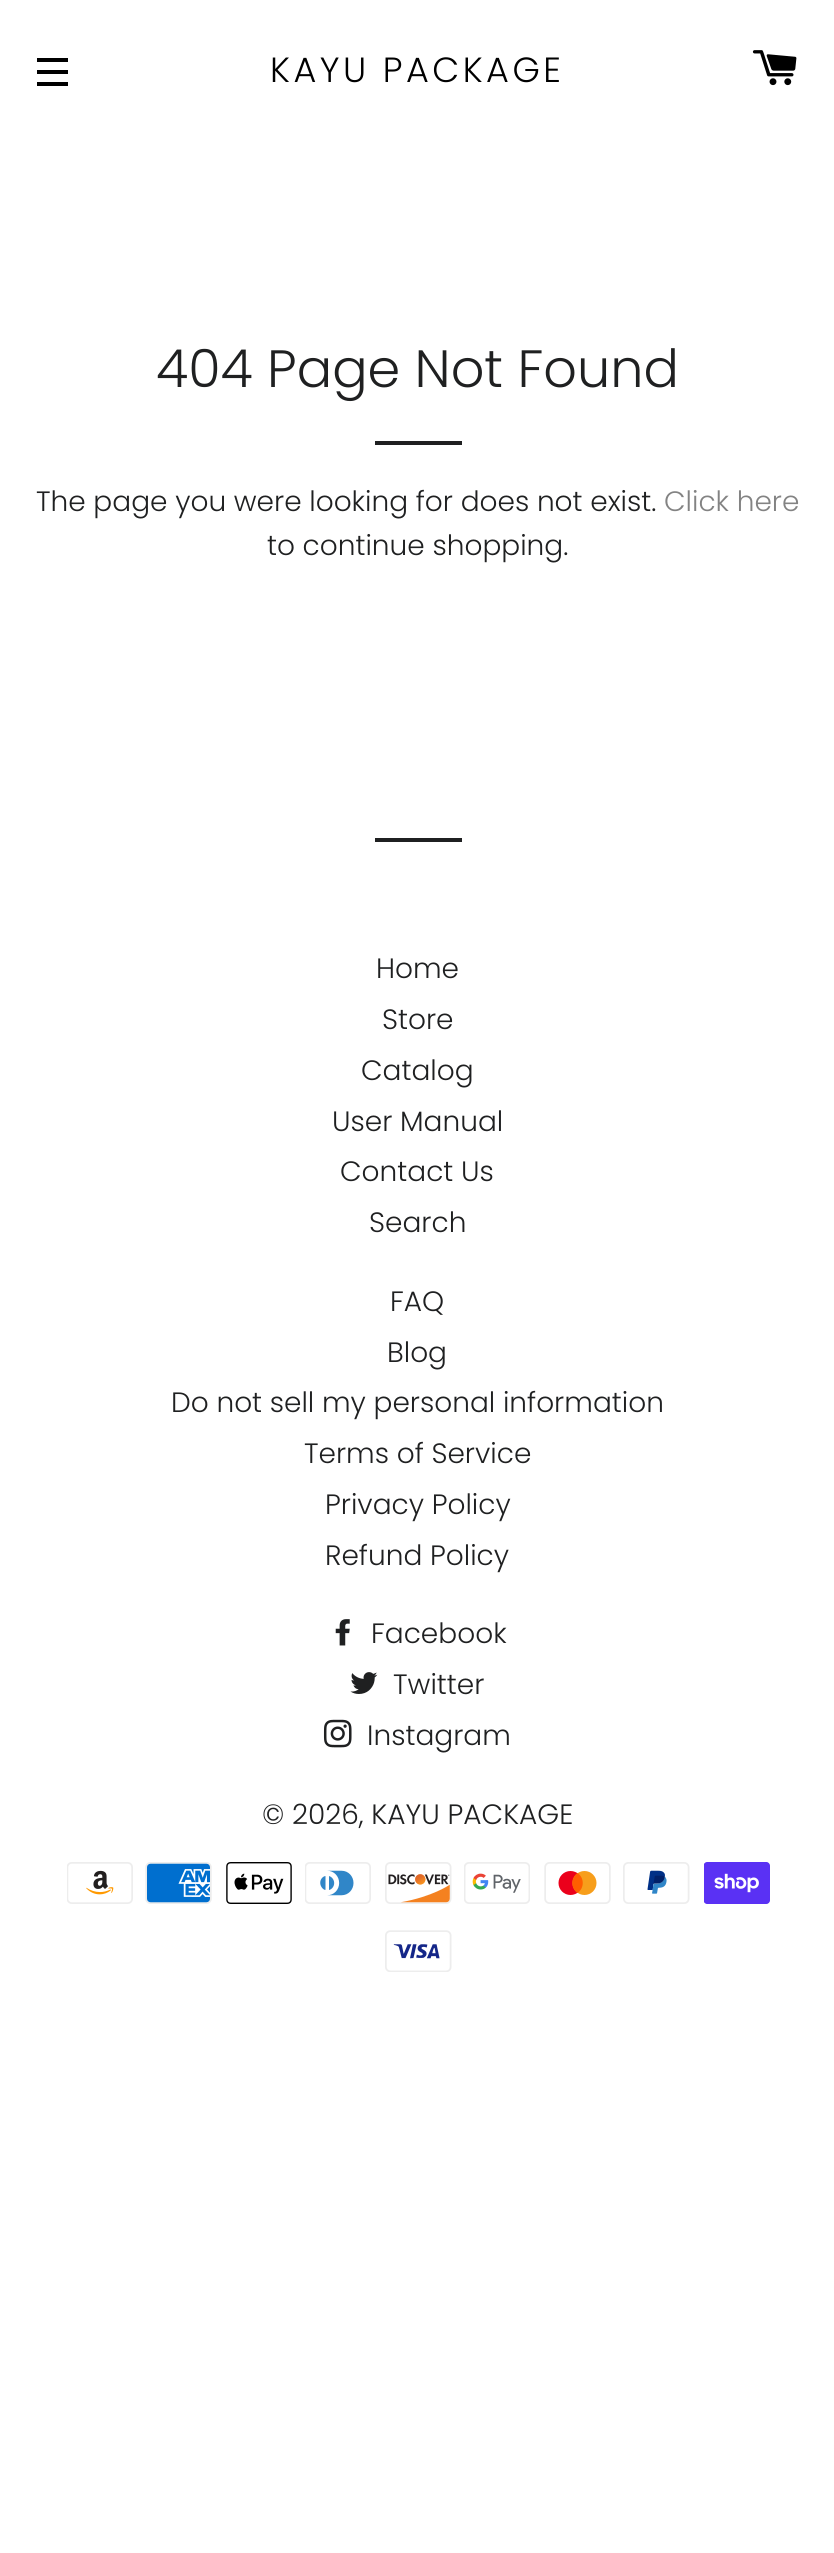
import math
import cairo



def draw_spaced(context, x, y, s, letter, word):
    context.move_to(x, y)
    for ch in s:
        context.show_text(ch)
        context.rel_move_to(letter + word * (ch == ' '), 0)


def draw_image(context, path, x, y, w, h):
    context.save()
    context.set_source_surface(cairo.ImageSurface.create_from_png(path), x, y)
    context.rectangle(x, y, w, h)
    context.fill()
    context.restore()


def draw(context):
    context.set_source_rgb(1, 1, 1)
    context.paint()
    context.set_source_rgb(0, 0, 0)
    context.rectangle(37, 58, 31, 4)
    context.fill()
    context.rectangle(37, 70, 31, 4)
    context.fill()
    context.rectangle(37, 82, 31, 4)
    context.fill()
    draw_image(context, "images/1.png", 752, 50, 45, 36)
    context.set_source_rgb(31 / 255, 32 / 255, 33 / 255)
    context.rectangle(375, 441, 87, 4)
    context.fill()
    context.rectangle(375, 838, 87, 4)
    context.fill()
    draw_image(context, "images/2.png", 335, 1619, 15, 27)
    draw_image(context, "images/3.png", 350, 1672, 28, 22)
    draw_image(context, "images/4.png", 323, 1719, 29, 29)
    draw_image(context, "images/5.png", 67, 1862, 66, 42)
    draw_image(context, "images/6.png", 145, 1862, 67, 42)
    draw_image(context, "images/7.png", 226, 1862, 66, 42)
    draw_image(context, "images/8.png", 305, 1862, 66, 42)
    draw_image(context, "images/9.png", 385, 1862, 67, 42)
    draw_image(context, "images/10.png", 464, 1862, 66, 42)
    draw_image(context, "images/11.png", 544, 1862, 67, 42)
    draw_image(context, "images/12.png", 623, 1862, 67, 42)
    draw_image(context, "images/13.png", 704, 1862, 66, 42)
    draw_image(context, "images/14.png", 385, 1930, 67, 42)
    context.select_font_face("Poppins Light")
    context.set_font_size(35)
    context.set_source_rgb(0, 0, 0)
    draw_spaced(context, 270, 82, "KAYU PACKAGE", 3.5, 0)
    context.set_font_size(52.5)
    context.set_source_rgb(31 / 255, 32 / 255, 33 / 255)
    context.move_to(156, 387)
    context.show_text("404 Page Not Found")
    context.set_font_size(28)
    context.move_to(36, 511)
    context.show_text("The page you were looking for does not exist.")
    context.set_source_rgb(131 / 255, 131 / 255, 131 / 255)
    context.move_to(664, 511)
    context.show_text("Click here")
    context.set_source_rgb(31 / 255, 32 / 255, 33 / 255)
    context.move_to(267, 555)
    context.show_text("to continue shopping.")
    context.move_to(376, 978)
    context.show_text("Home")
    context.move_to(382, 1029)
    context.show_text("Store")
    context.move_to(361, 1080)
    context.show_text("Catalog")
    context.move_to(332, 1131)
    context.show_text("User Manual")
    context.move_to(340, 1181)
    context.show_text("Contact Us")
    context.move_to(369, 1232)
    context.show_text("Search")
    context.move_to(390, 1311)
    context.show_text("FAQ")
    context.move_to(387, 1362)
    context.show_text("Blog")
    context.move_to(171, 1412)
    context.show_text("Do not sell my personal information")
    context.move_to(304, 1463)
    context.show_text("Terms of Service")
    context.move_to(325, 1514)
    context.show_text("Privacy Policy")
    context.move_to(325, 1565)
    context.show_text("Refund Policy")
    context.move_to(371, 1643)
    context.show_text("Facebook")
    context.move_to(393, 1694)
    context.show_text("Twitter")
    context.move_to(367, 1745)
    context.show_text("Instagram")
    context.move_to(262, 1824)
    context.show_text("© 2026, KAYU PACKAGE")


surface = cairo.ImageSurface(cairo.Format.RGB24, 834, 2553)
context = cairo.Context(surface)
options = cairo.FontOptions()
options.set_hint_metrics(cairo.HintMetrics.OFF)
options.set_hint_style(cairo.HintStyle.NONE)
context.set_font_options(options)
context.set_miter_limit(4)
draw(context)
surface.write_to_png("out.png")
